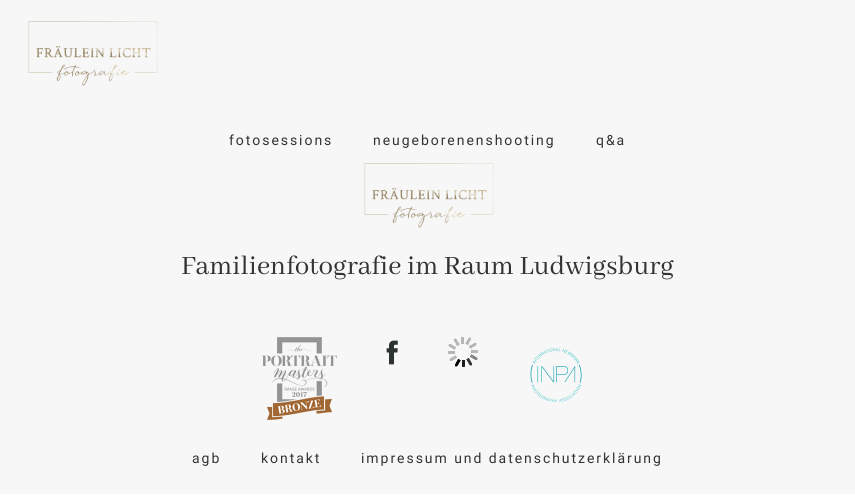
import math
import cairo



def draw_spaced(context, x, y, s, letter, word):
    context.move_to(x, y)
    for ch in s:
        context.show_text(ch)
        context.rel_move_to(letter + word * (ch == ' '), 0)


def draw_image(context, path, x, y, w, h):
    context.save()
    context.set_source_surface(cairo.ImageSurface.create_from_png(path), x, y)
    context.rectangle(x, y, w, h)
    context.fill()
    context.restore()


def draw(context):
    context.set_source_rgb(1, 1, 1)
    context.paint()
    context.set_source_rgb(247 / 255, 247 / 255, 247 / 255)
    context.rectangle(0, 0, 855, 494)
    context.fill()
    draw_image(context, "images/1.png", 28, 21, 130, 65)
    draw_image(context, "images/1.png", 364, 163, 130, 65)
    draw_image(context, "images/2.png", 262, 337, 75, 83)
    draw_image(context, "images/3.png", 386, 340, 12, 25)
    draw_image(context, "images/4.png", 448, 337, 30, 30)
    draw_image(context, "images/5.png", 530, 348, 52, 55)
    context.select_font_face("Roboto")
    context.set_font_size(14)
    context.set_source_rgb(51 / 255, 51 / 255, 51 / 255)
    draw_spaced(context, 229, 145, "fotosessions", 1.95, 0)
    draw_spaced(context, 373, 145, "neugeborenenshooting", 1.95, 0)
    draw_spaced(context, 596, 145, "q&a", 1.95, 0)
    context.select_font_face("Abhaya Libre")
    context.set_font_size(29)
    context.move_to(181, 274)
    context.show_text("Familienfotografie im Raum Ludwigsburg")
    context.select_font_face("Roboto")
    context.set_font_size(14)
    draw_spaced(context, 192, 463, "agb", 1.95, 0)
    draw_spaced(context, 261, 463, "kontakt", 1.95, 0)
    draw_spaced(context, 361, 463, "impressum und datenschutzerklärung", 1.95, 0)


surface = cairo.ImageSurface(cairo.Format.RGB24, 855, 502)
context = cairo.Context(surface)
options = cairo.FontOptions()
options.set_hint_metrics(cairo.HintMetrics.OFF)
options.set_hint_style(cairo.HintStyle.NONE)
context.set_font_options(options)
context.set_miter_limit(4)
draw(context)
surface.write_to_png("out.png")
